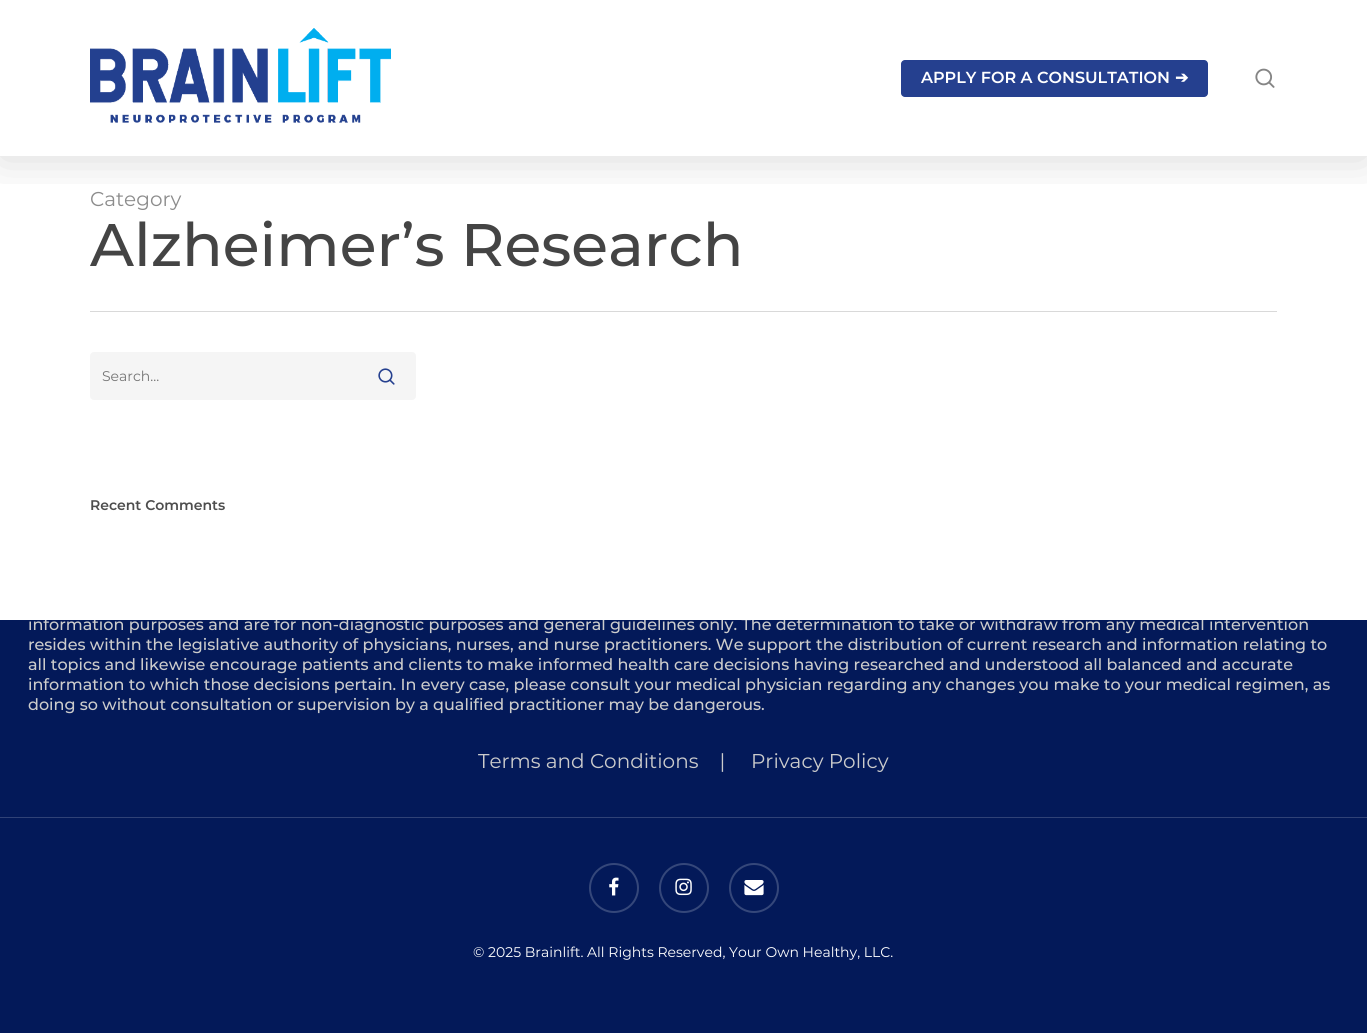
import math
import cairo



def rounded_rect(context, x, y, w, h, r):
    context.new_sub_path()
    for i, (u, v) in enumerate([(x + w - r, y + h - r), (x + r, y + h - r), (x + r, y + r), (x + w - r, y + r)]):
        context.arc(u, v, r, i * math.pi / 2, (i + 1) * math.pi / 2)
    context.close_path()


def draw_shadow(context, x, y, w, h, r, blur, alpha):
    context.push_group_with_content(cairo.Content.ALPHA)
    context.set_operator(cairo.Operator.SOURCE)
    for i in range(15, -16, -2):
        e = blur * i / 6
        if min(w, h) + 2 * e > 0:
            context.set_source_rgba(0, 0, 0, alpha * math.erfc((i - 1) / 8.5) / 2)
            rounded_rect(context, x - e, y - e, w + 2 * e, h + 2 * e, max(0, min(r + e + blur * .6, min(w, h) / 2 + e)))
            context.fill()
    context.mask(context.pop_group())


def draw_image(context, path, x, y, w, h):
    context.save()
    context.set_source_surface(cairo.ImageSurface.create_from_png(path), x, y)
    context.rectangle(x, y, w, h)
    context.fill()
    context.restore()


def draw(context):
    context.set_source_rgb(1, 1, 1)
    context.paint()
    context.save()
    context.rectangle(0, 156, 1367, 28)
    context.clip()
    context.set_source_rgb(0, 0, 0)
    draw_shadow(context, 0, 3, 1367, 156, 0, 22.5, 0.15)
    context.restore()
    draw_image(context, "images/1.png", 90, 28, 301, 95)
    context.set_source_rgb(37 / 255, 64 / 255, 143 / 255)
    rounded_rect(context, 901, 60, 307, 37, 4)
    context.fill()
    draw_image(context, "images/2.png", 1255, 68, 20, 20)
    context.set_source_rgb(217 / 255, 217 / 255, 217 / 255)
    context.rectangle(90, 311, 1187, 1)
    context.fill()
    context.set_source_rgb(245 / 255, 245 / 255, 245 / 255)
    rounded_rect(context, 90, 352, 326, 48, 4)
    context.fill()
    draw_image(context, "images/3.png", 378, 368, 17, 17)
    context.set_source_rgb(3 / 255, 25 / 255, 89 / 255)
    context.rectangle(0, 620, 1367, 413)
    context.fill()
    context.set_source_rgb(48 / 255, 66 / 255, 119 / 255)
    context.rectangle(0, 817, 1367, 1)
    context.fill()
    draw_image(context, "images/4.png", 609, 877, 10, 19)
    context.arc(614, 888, 24, 0, 2 * math.pi)
    context.set_source_rgb(53 / 255, 71 / 255, 122 / 255)
    context.stroke()
    draw_image(context, "images/5.png", 675, 878, 17, 18)
    context.arc(684, 888, 24, 0, 2 * math.pi)
    context.stroke()
    draw_image(context, "images/6.png", 744, 880, 20, 16)
    context.arc(754, 888, 24, 0, 2 * math.pi)
    context.stroke()
    context.select_font_face("Montserrat SemiBold")
    context.set_font_size(16)
    context.set_source_rgb(1, 1, 1)
    context.move_to(921, 83)
    context.show_text("APPLY FOR A CONSULTATION")
    context.select_font_face("DejaVu Sans", cairo.FontSlant.NORMAL, cairo.FontWeight.BOLD)
    context.move_to(1175, 83)
    context.show_text("➔")
    context.select_font_face("Montserrat")
    context.set_font_size(20)
    context.set_source_rgb(140 / 255, 140 / 255, 140 / 255)
    context.move_to(90, 206)
    context.show_text("Category")
    context.select_font_face("Montserrat Medium")
    context.set_font_size(60)
    context.set_source_rgb(68 / 255, 68 / 255, 68 / 255)
    context.move_to(90, 266)
    context.show_text("Alzheimer’s Research")
    context.select_font_face("Montserrat")
    context.set_font_size(14)
    context.set_source_rgb(117 / 255, 117 / 255, 117 / 255)
    context.move_to(102, 381)
    context.show_text("Search...")
    context.select_font_face("Montserrat SemiBold")
    context.set_source_rgb(77 / 255, 77 / 255, 77 / 255)
    context.move_to(90, 510)
    context.show_text("Recent Comments")
    context.select_font_face("Montserrat Medium")
    context.set_font_size(16)
    context.set_source_rgb(204 / 255, 204 / 255, 204 / 255)
    context.move_to(28, 630)
    context.show_text("information purposes and are for non-diagnostic purposes and general guidelines only. The determination to take or withdraw from any medical intervention")
    context.set_source_rgb(1, 1, 1)
    context.rectangle(29, 617, 1258, 3)
    context.fill()
    context.set_source_rgb(204 / 255, 204 / 255, 204 / 255)
    context.move_to(28, 650)
    context.show_text("resides within the legislative authority of physicians, nurses, and nurse practitioners. We support the distribution of current research and information relating to")
    context.move_to(28, 670)
    context.show_text("all topics and likewise encourage patients and clients to make informed health care decisions having researched and understood all balanced and accurate")
    context.move_to(28, 690)
    context.show_text("information to which those decisions pertain. In every case, please consult your medical physician regarding any changes you make to your medical regimen, as")
    context.move_to(28, 710)
    context.show_text("doing so without consultation or supervision by a qualified practitioner may be dangerous.")
    context.select_font_face("Montserrat")
    context.set_font_size(20)
    context.move_to(478, 768)
    context.show_text("Terms and Conditions    |")
    context.move_to(751, 768)
    context.show_text("Privacy Policy")
    context.set_font_size(14)
    context.set_source_rgb(1, 1, 1)
    context.move_to(473, 957)
    context.show_text("© 2025 Brainlift. All Rights Reserved, Your Own Healthy, LLC.")


surface = cairo.ImageSurface(cairo.Format.RGB24, 1367, 1033)
context = cairo.Context(surface)
options = cairo.FontOptions()
options.set_hint_metrics(cairo.HintMetrics.OFF)
options.set_hint_style(cairo.HintStyle.NONE)
context.set_font_options(options)
context.set_miter_limit(4)
draw(context)
surface.write_to_png("out.png")
